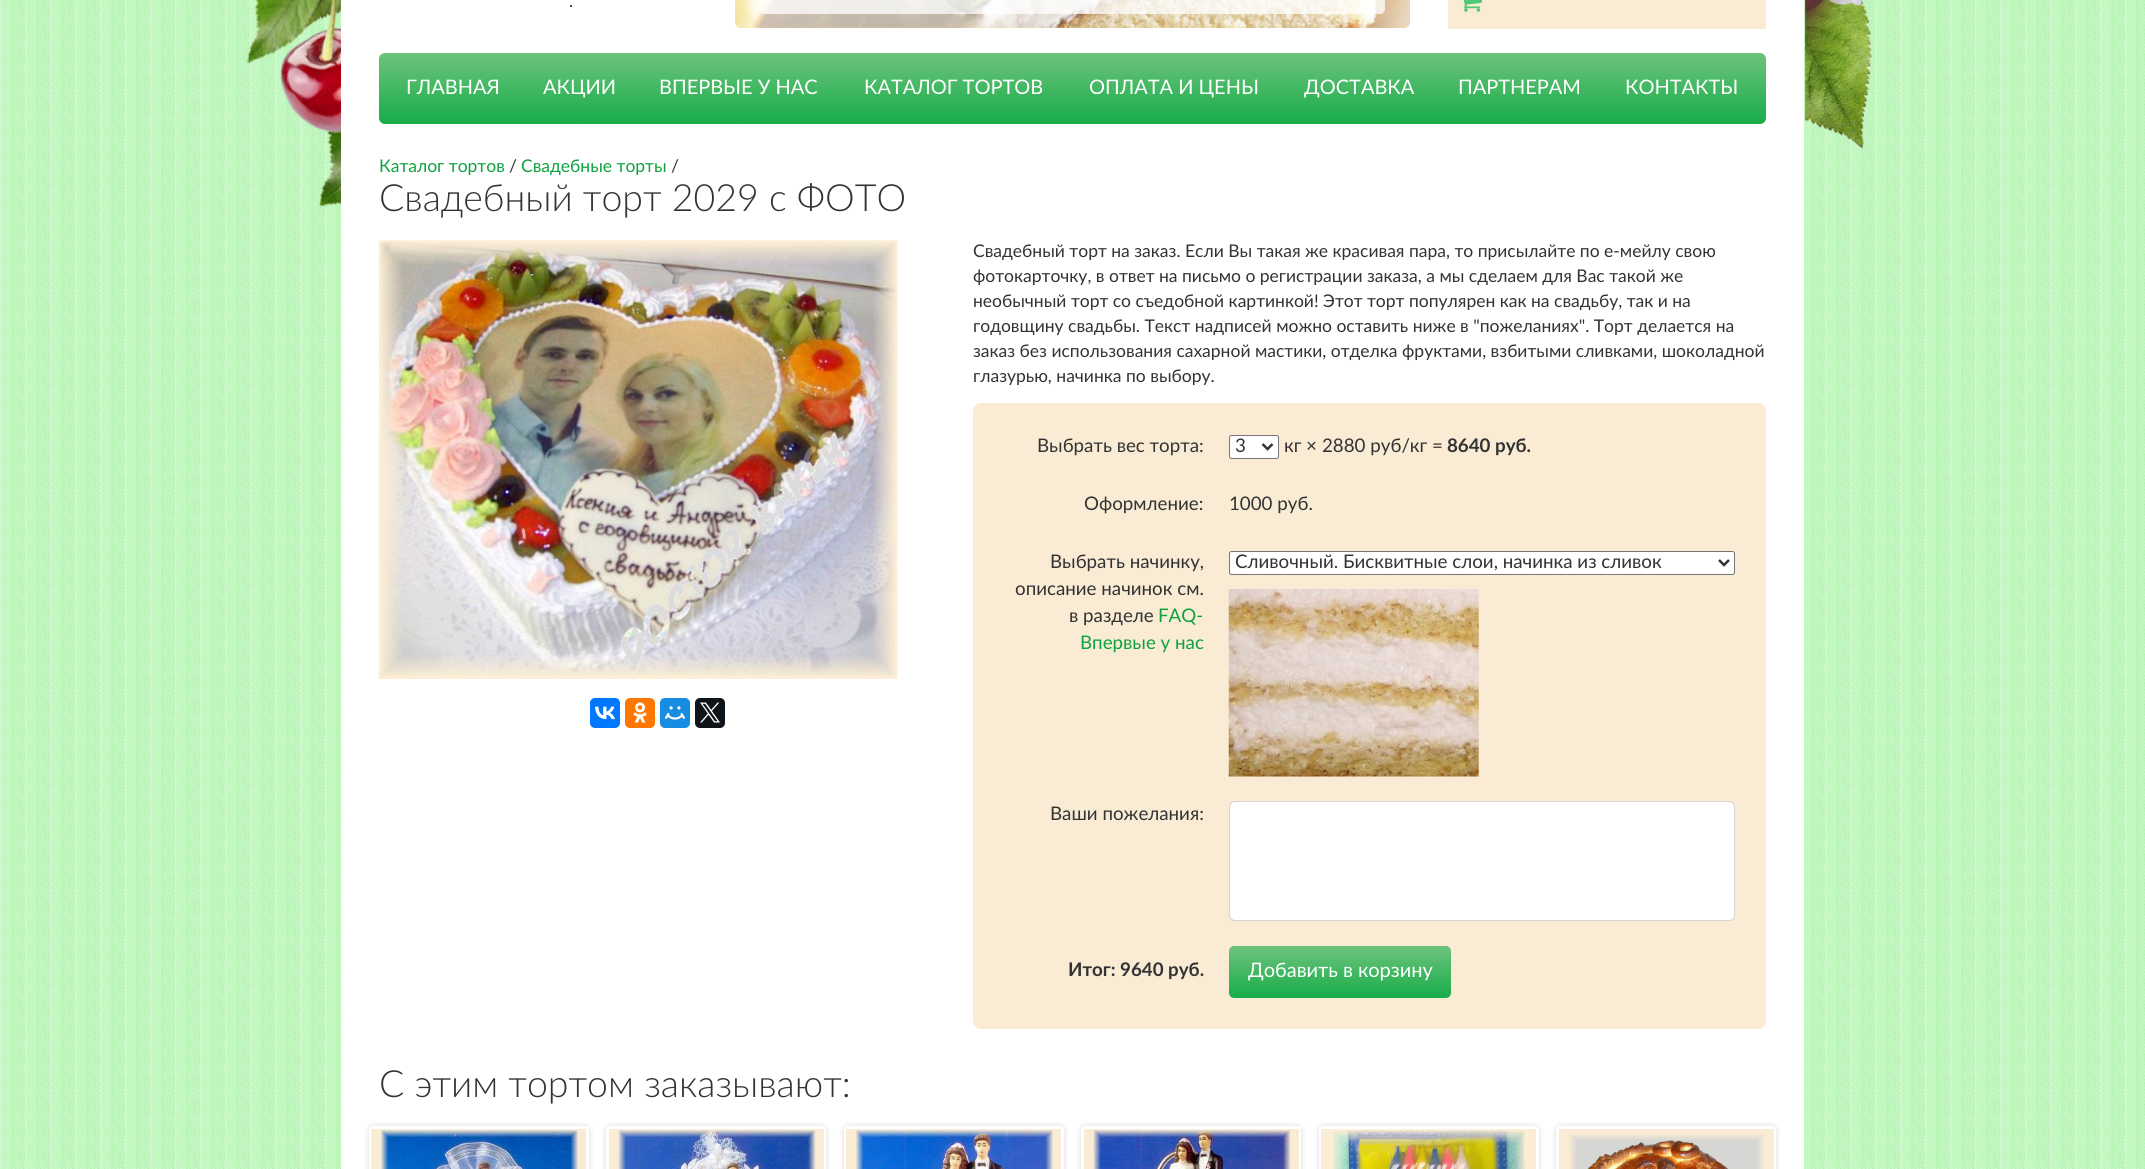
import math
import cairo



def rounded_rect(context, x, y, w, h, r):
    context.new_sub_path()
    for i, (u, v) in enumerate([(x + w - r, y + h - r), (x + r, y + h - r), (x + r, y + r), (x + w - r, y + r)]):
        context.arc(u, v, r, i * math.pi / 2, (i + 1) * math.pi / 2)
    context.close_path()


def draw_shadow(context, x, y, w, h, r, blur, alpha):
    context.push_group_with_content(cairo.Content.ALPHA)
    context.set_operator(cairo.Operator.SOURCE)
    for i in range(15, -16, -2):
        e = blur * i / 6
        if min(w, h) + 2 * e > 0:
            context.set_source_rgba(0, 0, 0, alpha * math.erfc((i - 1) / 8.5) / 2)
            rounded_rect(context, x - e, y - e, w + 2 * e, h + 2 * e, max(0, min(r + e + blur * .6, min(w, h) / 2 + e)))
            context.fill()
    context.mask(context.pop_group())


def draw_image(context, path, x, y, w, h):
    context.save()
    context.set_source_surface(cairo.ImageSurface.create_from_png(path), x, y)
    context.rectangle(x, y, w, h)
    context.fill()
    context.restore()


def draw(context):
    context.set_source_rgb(1, 1, 1)
    context.paint()
    draw_image(context, "images/1.png", 0, 0, 2145, 1169)
    draw_image(context, "images/2.png", 246, 0, 1627, 207)
    context.set_source_rgb(1, 1, 1)
    context.rectangle(341, 0, 1463, 1169)
    context.fill()
    context.set_source_rgb(243 / 255, 212 / 255, 136 / 255)
    rounded_rect(context, 735, -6, 675, 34, 6)
    context.fill()
    draw_image(context, "images/3.png", 735, 0, 675, 28)
    context.set_source_rgba(1, 1, 1, 0.75)
    rounded_rect(context, 760, -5, 625, 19, 5)
    context.fill()
    context.set_source_rgb(249 / 255, 235 / 255, 212 / 255)
    context.rectangle(1448, 0, 318, 29)
    context.fill()
    draw_image(context, "images/4.png", 1463, 0, 19, 12)
    gradient = cairo.LinearGradient(1073, 52, 1073, 124)
    gradient.add_color_stop_rgba(0, 110 / 255, 195 / 255, 124 / 255, 1)
    gradient.add_color_stop_rgba(1, 23 / 255, 173 / 255, 73 / 255, 1)
    context.set_source(gradient)
    rounded_rect(context, 379, 53, 1387, 71, 6)
    context.fill()
    context.set_source_rgba(1, 1, 1, 0.1)
    context.new_path()
    context.move_to(462.5, 131)
    context.line_to(447.5, 131)
    context.line_to(455, 122.5)
    context.close_path()
    context.fill()
    context.new_path()
    context.move_to(587.5, 131)
    context.line_to(572.5, 131)
    context.line_to(580, 122.5)
    context.close_path()
    context.fill()
    context.new_path()
    context.move_to(747.5, 131)
    context.line_to(732.5, 131)
    context.line_to(740, 122.5)
    context.close_path()
    context.fill()
    context.new_path()
    context.move_to(962.5, 131)
    context.line_to(947.5, 131)
    context.line_to(955, 122.5)
    context.close_path()
    context.fill()
    context.new_path()
    context.move_to(1182.5, 131)
    context.line_to(1167.5, 131)
    context.line_to(1175, 122.5)
    context.close_path()
    context.fill()
    context.new_path()
    context.move_to(1367.5, 131)
    context.line_to(1352.5, 131)
    context.line_to(1360, 122.5)
    context.close_path()
    context.fill()
    context.new_path()
    context.move_to(1529, 131)
    context.line_to(1514, 131)
    context.line_to(1521, 122.5)
    context.close_path()
    context.fill()
    context.new_path()
    context.move_to(1690, 131)
    context.line_to(1675, 131)
    context.line_to(1682.5, 122.5)
    context.close_path()
    context.fill()
    draw_image(context, "images/5.png", 378, 240, 520, 439)
    context.set_source_rgb(0, 119 / 255, 1)
    rounded_rect(context, 590, 698, 30, 30, 5)
    context.fill()
    draw_image(context, "images/6.png", 595, 706, 20, 14)
    context.set_source_rgb(1, 119 / 255, 0)
    rounded_rect(context, 625, 698, 30, 30, 5)
    context.fill()
    draw_image(context, "images/7.png", 633, 702, 14, 21)
    context.set_source_rgb(22 / 255, 141 / 255, 226 / 255)
    rounded_rect(context, 660, 698, 30, 30, 5)
    context.fill()
    draw_image(context, "images/8.png", 665, 706, 20, 14)
    context.set_source_rgb(15 / 255, 20 / 255, 25 / 255)
    rounded_rect(context, 695, 698, 30, 30, 5)
    context.fill()
    draw_image(context, "images/9.png", 700, 702, 20, 21)
    context.set_source_rgb(249 / 255, 235 / 255, 212 / 255)
    rounded_rect(context, 973, 403, 793, 626, 8)
    context.fill()
    context.set_source_rgb(1, 1, 1)
    rounded_rect(context, 1229.5, 435.5, 49, 23, 2)
    context.fill_preserve()
    context.set_source_rgb(118 / 255, 118 / 255, 118 / 255)
    context.set_line_width(1)
    context.stroke()
    context.new_path()
    context.move_to(1262.5, 444)
    context.line_to(1267.5, 449)
    context.line_to(1272.5, 444)
    context.set_source_rgb(51 / 255, 51 / 255, 51 / 255)
    context.set_line_width(2.5)
    context.stroke()
    context.set_source_rgb(1, 1, 1)
    rounded_rect(context, 1229.5, 551.5, 505, 23, 2)
    context.fill_preserve()
    context.set_source_rgb(118 / 255, 118 / 255, 118 / 255)
    context.set_line_width(1)
    context.stroke()
    context.new_path()
    context.move_to(1719, 560)
    context.line_to(1724, 565)
    context.line_to(1729, 560)
    context.set_source_rgb(51 / 255, 51 / 255, 51 / 255)
    context.set_line_width(2.5)
    context.stroke()
    draw_image(context, "images/10.png", 1228, 589, 251, 188)
    context.set_source_rgb(1, 1, 1)
    rounded_rect(context, 1229.5, 801.5, 505, 119, 5.5)
    context.fill_preserve()
    context.set_source_rgb(211 / 255, 211 / 255, 211 / 255)
    context.set_line_width(1)
    context.stroke()
    gradient = cairo.LinearGradient(1340, 946, 1340, 998)
    gradient.add_color_stop_rgba(0, 110 / 255, 195 / 255, 124 / 255, 1)
    gradient.add_color_stop_rgba(1, 23 / 255, 173 / 255, 73 / 255, 1)
    context.set_source(gradient)
    rounded_rect(context, 1229, 946, 222, 52, 5)
    context.fill()
    context.save()
    context.set_fill_rule(cairo.FillRule.EVEN_ODD)
    context.new_path()
    context.move_to(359, 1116)
    context.line_to(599, 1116)
    context.line_to(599, 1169)
    context.line_to(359, 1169)
    context.close_path()
    context.move_to(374, 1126)
    context.line_to(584, 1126)
    context.curve_to(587, 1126, 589, 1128, 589, 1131)
    context.line_to(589, 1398)
    context.curve_to(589, 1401, 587, 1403, 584, 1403)
    context.line_to(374, 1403)
    context.curve_to(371, 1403, 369, 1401, 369, 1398)
    context.line_to(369, 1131)
    context.curve_to(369, 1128, 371, 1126, 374, 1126)
    context.close_path()
    context.clip()
    context.set_source_rgb(0, 0, 0)
    draw_shadow(context, 369, 1126, 220, 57, 5, 3, 0.15)
    context.restore()
    context.set_source_rgb(249 / 255, 235 / 255, 212 / 255)
    context.rectangle(371, 1129, 215, 40)
    context.fill()
    draw_image(context, "images/11.png", 380, 1129, 199, 40)
    context.save()
    context.set_fill_rule(cairo.FillRule.EVEN_ODD)
    context.new_path()
    context.move_to(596, 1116)
    context.line_to(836, 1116)
    context.line_to(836, 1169)
    context.line_to(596, 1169)
    context.close_path()
    context.move_to(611, 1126)
    context.line_to(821, 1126)
    context.curve_to(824, 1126, 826, 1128, 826, 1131)
    context.line_to(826, 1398)
    context.curve_to(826, 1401, 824, 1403, 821, 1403)
    context.line_to(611, 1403)
    context.curve_to(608, 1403, 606, 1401, 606, 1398)
    context.line_to(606, 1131)
    context.curve_to(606, 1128, 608, 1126, 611, 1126)
    context.close_path()
    context.clip()
    context.set_source_rgb(0, 0, 0)
    draw_shadow(context, 606, 1126, 220, 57, 5, 3, 0.15)
    context.restore()
    context.rectangle(609, 1129, 215, 40)
    context.fill()
    draw_image(context, "images/12.png", 617, 1129, 199, 40)
    context.save()
    context.set_fill_rule(cairo.FillRule.EVEN_ODD)
    context.new_path()
    context.move_to(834, 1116)
    context.line_to(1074, 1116)
    context.line_to(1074, 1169)
    context.line_to(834, 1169)
    context.close_path()
    context.move_to(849, 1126)
    context.line_to(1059, 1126)
    context.curve_to(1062, 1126, 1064, 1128, 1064, 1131)
    context.line_to(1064, 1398)
    context.curve_to(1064, 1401, 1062, 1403, 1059, 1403)
    context.line_to(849, 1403)
    context.curve_to(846, 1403, 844, 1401, 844, 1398)
    context.line_to(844, 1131)
    context.curve_to(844, 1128, 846, 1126, 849, 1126)
    context.close_path()
    context.clip()
    context.set_source_rgb(0, 0, 0)
    draw_shadow(context, 844, 1126, 220, 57, 5, 3, 0.15)
    context.restore()
    context.rectangle(846, 1129, 215, 40)
    context.fill()
    draw_image(context, "images/13.png", 855, 1129, 199, 40)
    context.save()
    context.set_fill_rule(cairo.FillRule.EVEN_ODD)
    context.new_path()
    context.move_to(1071, 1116)
    context.line_to(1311, 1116)
    context.line_to(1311, 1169)
    context.line_to(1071, 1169)
    context.close_path()
    context.move_to(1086, 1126)
    context.line_to(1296, 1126)
    context.curve_to(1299, 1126, 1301, 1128, 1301, 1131)
    context.line_to(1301, 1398)
    context.curve_to(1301, 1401, 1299, 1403, 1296, 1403)
    context.line_to(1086, 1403)
    context.curve_to(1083, 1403, 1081, 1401, 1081, 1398)
    context.line_to(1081, 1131)
    context.curve_to(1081, 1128, 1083, 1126, 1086, 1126)
    context.close_path()
    context.clip()
    context.set_source_rgb(0, 0, 0)
    draw_shadow(context, 1081, 1126, 220, 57, 5, 3, 0.15)
    context.restore()
    context.rectangle(1084, 1129, 215, 40)
    context.fill()
    draw_image(context, "images/14.png", 1092, 1129, 199, 40)
    context.save()
    context.set_fill_rule(cairo.FillRule.EVEN_ODD)
    context.new_path()
    context.move_to(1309, 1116)
    context.line_to(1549, 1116)
    context.line_to(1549, 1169)
    context.line_to(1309, 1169)
    context.close_path()
    context.move_to(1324, 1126)
    context.line_to(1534, 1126)
    context.curve_to(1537, 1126, 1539, 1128, 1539, 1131)
    context.line_to(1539, 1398)
    context.curve_to(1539, 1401, 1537, 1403, 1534, 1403)
    context.line_to(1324, 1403)
    context.curve_to(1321, 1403, 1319, 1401, 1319, 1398)
    context.line_to(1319, 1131)
    context.curve_to(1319, 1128, 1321, 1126, 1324, 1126)
    context.close_path()
    context.clip()
    context.set_source_rgb(0, 0, 0)
    draw_shadow(context, 1319, 1126, 220, 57, 5, 3, 0.15)
    context.restore()
    context.rectangle(1321, 1129, 215, 40)
    context.fill()
    draw_image(context, "images/15.png", 1330, 1129, 197, 40)
    context.save()
    context.set_fill_rule(cairo.FillRule.EVEN_ODD)
    context.new_path()
    context.move_to(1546, 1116)
    context.line_to(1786, 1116)
    context.line_to(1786, 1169)
    context.line_to(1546, 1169)
    context.close_path()
    context.move_to(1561, 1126)
    context.line_to(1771, 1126)
    context.curve_to(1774, 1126, 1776, 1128, 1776, 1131)
    context.line_to(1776, 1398)
    context.curve_to(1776, 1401, 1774, 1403, 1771, 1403)
    context.line_to(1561, 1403)
    context.curve_to(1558, 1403, 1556, 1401, 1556, 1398)
    context.line_to(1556, 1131)
    context.curve_to(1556, 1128, 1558, 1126, 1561, 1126)
    context.close_path()
    context.clip()
    context.set_source_rgb(0, 0, 0)
    draw_shadow(context, 1556, 1126, 220, 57, 5, 3, 0.15)
    context.restore()
    context.rectangle(1559, 1129, 215, 40)
    context.fill()
    draw_image(context, "images/16.png", 1569, 1134, 195, 35)
    context.select_font_face("Lato")
    context.set_font_size(17.5)
    context.set_source_rgb(51 / 255, 51 / 255, 51 / 255)
    context.move_to(569, 7)
    context.show_text(".")
    context.set_font_size(20)
    context.set_source_rgb(1, 1, 1)
    context.move_to(406, 94)
    context.show_text("ГЛАВНАЯ")
    context.move_to(543, 94)
    context.show_text("АКЦИИ")
    context.move_to(659, 94)
    context.show_text("ВПЕРВЫЕ У НАС")
    context.move_to(864, 94)
    context.show_text("КАТАЛОГ ТОРТОВ")
    context.move_to(1089, 94)
    context.show_text("ОПЛАТА И ЦЕНЫ")
    context.move_to(1304, 94)
    context.show_text("ДОСТАВКА")
    context.move_to(1458, 94)
    context.show_text("ПАРТНЕРАМ")
    context.move_to(1625, 94)
    context.show_text("КОНТАКТЫ")
    context.set_font_size(17.5)
    context.set_source_rgb(15 / 255, 162 / 255, 64 / 255)
    context.move_to(379, 172)
    context.show_text("Каталог тортов")
    context.set_source_rgb(51 / 255, 51 / 255, 51 / 255)
    context.move_to(509, 172)
    context.show_text("/")
    context.set_source_rgb(15 / 255, 162 / 255, 64 / 255)
    context.move_to(521, 172)
    context.show_text("Свадебные торты")
    context.set_source_rgb(51 / 255, 51 / 255, 51 / 255)
    context.move_to(671, 172)
    context.show_text("/")
    context.select_font_face("Lato Light")
    context.set_font_size(37.5)
    context.move_to(379, 211)
    context.show_text("Свадебный торт 2029 с ФОТО")
    context.select_font_face("Lato")
    context.set_font_size(17.5)
    context.move_to(973, 257)
    context.show_text("Свадебный торт на заказ. Если Вы такая же красивая пара, то присылайте по е-мейлу свою")
    context.move_to(973, 282)
    context.show_text("фотокарточку, в ответ на письмо о регистрации заказа, а мы сделаем для Вас такой же")
    context.move_to(973, 307)
    context.show_text("необычный торт со съедобной картинкой! Этот торт популярен как на свадьбу, так и на")
    context.move_to(973, 332)
    context.show_text("годовщину свадьбы. Текст надписей можно оставить ниже в \"пожеланиях\". Торт делается на")
    context.move_to(973, 357)
    context.show_text("заказ без использования сахарной мастики, отделка фруктами, взбитыми сливками, шоколадной")
    context.move_to(973, 382)
    context.show_text("глазурью, начинка по выбору.")
    context.set_font_size(18.75)
    context.move_to(1037, 452)
    context.show_text("Выбрать вес торта:")
    context.move_to(1235, 452)
    context.show_text("3")
    context.move_to(1284, 452)
    context.show_text("кг")
    context.select_font_face("Liberation Sans")
    context.move_to(1306, 452)
    context.show_text("×")
    context.select_font_face("Lato")
    context.move_to(1322, 452)
    context.show_text("2880 руб/кг =")
    context.select_font_face("Lato", cairo.FontSlant.NORMAL, cairo.FontWeight.BOLD)
    context.move_to(1447, 452)
    context.show_text("8640 руб.")
    context.select_font_face("Lato")
    context.move_to(1084, 510)
    context.show_text("Оформление:")
    context.move_to(1229, 510)
    context.show_text("1000 руб.")
    context.move_to(1050, 568)
    context.show_text("Выбрать начинку,")
    context.move_to(1015, 595)
    context.show_text("описание начинок см.")
    context.move_to(1069, 622)
    context.show_text("в разделе")
    context.set_source_rgb(15 / 255, 162 / 255, 64 / 255)
    context.move_to(1158, 622)
    context.show_text("FAQ-")
    context.move_to(1080, 649)
    context.show_text("Впервые у нас")
    context.set_source_rgb(51 / 255, 51 / 255, 51 / 255)
    context.move_to(1235, 568)
    context.show_text("Сливочный. Бисквитные слои, начинка из сливок")
    context.move_to(1050, 820)
    context.show_text("Ваши пожелания:")
    context.select_font_face("Lato", cairo.FontSlant.NORMAL, cairo.FontWeight.BOLD)
    context.move_to(1068, 976)
    context.show_text("Итог: 9640 руб.")
    context.select_font_face("Lato")
    context.set_font_size(20)
    context.set_source_rgb(1, 1, 1)
    context.move_to(1248, 977)
    context.show_text("Добавить в корзину")
    context.select_font_face("Lato Light")
    context.set_font_size(37.5)
    context.set_source_rgb(51 / 255, 51 / 255, 51 / 255)
    context.move_to(379, 1097)
    context.show_text("С этим тортом заказывают:")


surface = cairo.ImageSurface(cairo.Format.RGB24, 2145, 1169)
context = cairo.Context(surface)
options = cairo.FontOptions()
options.set_hint_metrics(cairo.HintMetrics.OFF)
options.set_hint_style(cairo.HintStyle.NONE)
context.set_font_options(options)
context.set_miter_limit(4)
draw(context)
surface.write_to_png("out.png")
